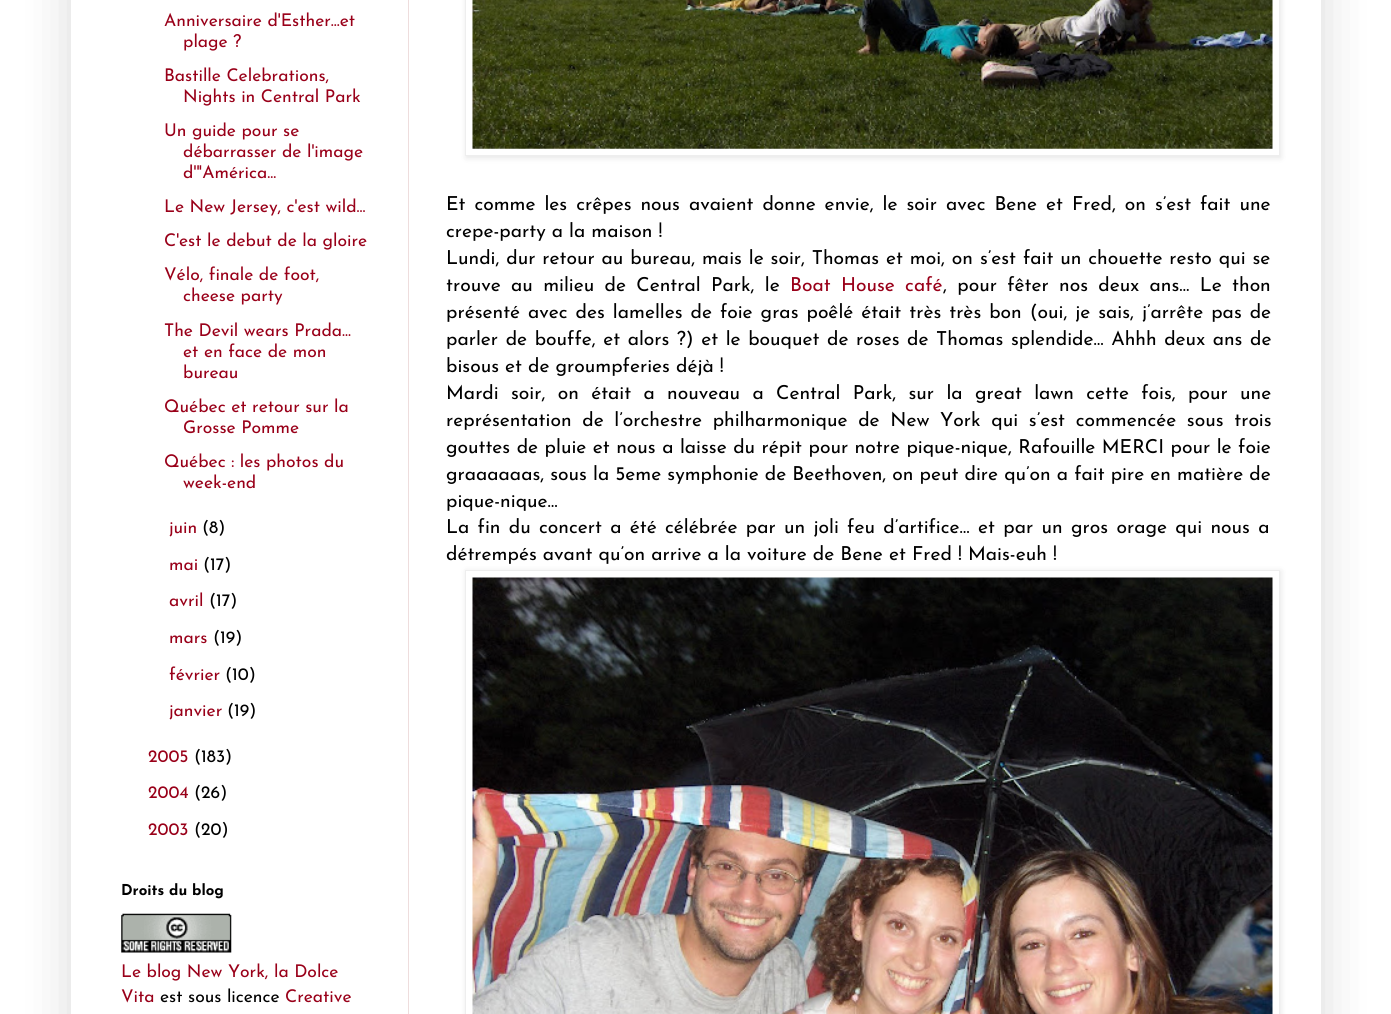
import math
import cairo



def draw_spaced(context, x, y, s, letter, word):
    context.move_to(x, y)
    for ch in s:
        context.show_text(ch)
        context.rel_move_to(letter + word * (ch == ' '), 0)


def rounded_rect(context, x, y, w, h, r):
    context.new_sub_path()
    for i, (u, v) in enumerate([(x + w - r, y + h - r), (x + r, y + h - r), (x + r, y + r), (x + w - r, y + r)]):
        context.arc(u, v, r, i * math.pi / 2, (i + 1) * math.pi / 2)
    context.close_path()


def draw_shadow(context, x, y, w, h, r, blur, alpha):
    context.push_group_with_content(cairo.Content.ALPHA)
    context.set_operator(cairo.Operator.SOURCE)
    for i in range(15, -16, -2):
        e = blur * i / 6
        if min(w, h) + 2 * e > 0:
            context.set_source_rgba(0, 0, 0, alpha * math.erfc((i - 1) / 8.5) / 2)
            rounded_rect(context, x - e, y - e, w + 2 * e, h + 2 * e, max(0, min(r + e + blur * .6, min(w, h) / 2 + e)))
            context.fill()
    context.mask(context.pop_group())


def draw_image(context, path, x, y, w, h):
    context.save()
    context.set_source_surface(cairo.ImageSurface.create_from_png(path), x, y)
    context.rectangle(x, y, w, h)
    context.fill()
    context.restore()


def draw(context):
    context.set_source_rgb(1, 1, 1)
    context.paint()
    context.set_source_rgb(0, 0, 0)
    draw_shadow(context, 71, -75, 1250, 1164, 0, 25, 0.15)
    context.set_source_rgb(1, 1, 1)
    context.rectangle(71, 0, 1250, 1014)
    context.fill()
    context.set_source_rgb(238 / 255, 221 / 255, 221 / 255)
    context.rectangle(408, 0, 1, 1014)
    context.fill()
    draw_image(context, "images/1.png", 121, 913, 111, 40)
    context.save()
    context.set_fill_rule(cairo.FillRule.EVEN_ODD)
    context.new_path()
    context.move_to(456, 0)
    context.line_to(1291, 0)
    context.line_to(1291, 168)
    context.line_to(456, 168)
    context.close_path()
    context.move_to(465, -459)
    context.line_to(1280, -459)
    context.line_to(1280, 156)
    context.line_to(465, 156)
    context.close_path()
    context.clip()
    context.set_source_rgb(0, 0, 0)
    draw_shadow(context, 466, -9, 815, 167, 0, 3, 0.1)
    context.restore()
    context.rectangle(465.5, -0.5, 814, 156)
    context.set_source_rgb(238 / 255, 238 / 255, 238 / 255)
    context.set_line_width(1)
    context.stroke()
    draw_image(context, "images/2.png", 472, 0, 801, 149)
    context.save()
    context.set_fill_rule(cairo.FillRule.EVEN_ODD)
    context.new_path()
    context.move_to(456, 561)
    context.line_to(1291, 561)
    context.line_to(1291, 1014)
    context.line_to(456, 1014)
    context.close_path()
    context.move_to(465, 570)
    context.line_to(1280, 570)
    context.line_to(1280, 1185)
    context.line_to(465, 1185)
    context.close_path()
    context.clip()
    context.set_source_rgb(0, 0, 0)
    draw_shadow(context, 466, 571, 815, 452, 0, 3, 0.1)
    context.restore()
    context.rectangle(465.5, 570.5, 814, 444)
    context.stroke()
    draw_image(context, "images/3.png", 472, 577, 801, 437)
    context.select_font_face("Josefin Sans")
    context.set_font_size(17.5)
    context.set_source_rgb(153 / 255, 0, 25 / 255)
    context.move_to(164, 26)
    context.show_text("Anniversaire d'Esther...et")
    context.move_to(183, 47)
    context.show_text("plage ?")
    context.move_to(164, 81)
    context.show_text("Bastille Celebrations,")
    context.move_to(183, 102)
    context.show_text("Nights in Central Park")
    context.move_to(164, 136)
    context.show_text("Un guide pour se")
    context.move_to(183, 157)
    context.show_text("débarrasser de l'image")
    context.move_to(183, 178)
    context.show_text("d'\"América...")
    context.move_to(164, 212)
    context.show_text("Le New Jersey, c'est wild...")
    context.move_to(164, 246)
    context.show_text("C'est le debut de la gloire")
    context.move_to(164, 280)
    context.show_text("Vélo, finale de foot,")
    context.move_to(183, 301)
    context.show_text("cheese party")
    context.move_to(164, 336)
    context.show_text("The Devil wears Prada...")
    context.move_to(183, 357)
    context.show_text("et en face de mon")
    context.move_to(183, 378)
    context.show_text("bureau")
    context.move_to(164, 412)
    context.show_text("Québec et retour sur la")
    context.move_to(183, 433)
    context.show_text("Grosse Pomme")
    context.move_to(164, 467)
    context.show_text("Québec : les photos du")
    context.move_to(183, 488)
    context.show_text("week-end")
    context.move_to(169, 533)
    context.show_text("juin")
    context.set_source_rgb(0, 0, 0)
    context.move_to(202, 533)
    context.show_text("(8)")
    context.set_source_rgb(153 / 255, 0, 25 / 255)
    context.move_to(169, 570)
    context.show_text("mai")
    context.set_source_rgb(0, 0, 0)
    context.move_to(203, 570)
    context.show_text("(17)")
    context.set_source_rgb(153 / 255, 0, 25 / 255)
    context.move_to(169, 606)
    context.show_text("avril")
    context.set_source_rgb(0, 0, 0)
    context.move_to(209, 606)
    context.show_text("(17)")
    context.set_source_rgb(153 / 255, 0, 25 / 255)
    context.move_to(169, 643)
    context.show_text("mars")
    context.set_source_rgb(0, 0, 0)
    context.move_to(213, 643)
    context.show_text("(19)")
    context.set_source_rgb(153 / 255, 0, 25 / 255)
    context.move_to(169, 680)
    context.show_text("février")
    context.set_source_rgb(0, 0, 0)
    context.move_to(225, 680)
    context.show_text("(10)")
    context.set_source_rgb(153 / 255, 0, 25 / 255)
    context.move_to(169, 716)
    context.show_text("janvier")
    context.set_source_rgb(0, 0, 0)
    context.move_to(227, 716)
    context.show_text("(19)")
    context.set_source_rgb(153 / 255, 0, 25 / 255)
    context.move_to(148, 762)
    context.show_text("2005")
    context.set_source_rgb(0, 0, 0)
    context.move_to(194, 762)
    context.show_text("(183)")
    context.set_source_rgb(153 / 255, 0, 25 / 255)
    context.move_to(148, 798)
    context.show_text("2004")
    context.set_source_rgb(0, 0, 0)
    context.move_to(194, 798)
    context.show_text("(26)")
    context.set_source_rgb(153 / 255, 0, 25 / 255)
    context.move_to(148, 835)
    context.show_text("2003")
    context.set_source_rgb(0, 0, 0)
    context.move_to(194, 835)
    context.show_text("(20)")
    context.select_font_face("Josefin Sans", cairo.FontSlant.NORMAL, cairo.FontWeight.BOLD)
    context.set_font_size(15)
    context.move_to(121, 895)
    context.show_text("Droits du blog")
    context.select_font_face("Josefin Sans")
    context.set_font_size(17.5)
    context.set_source_rgb(153 / 255, 0, 25 / 255)
    context.move_to(121, 977)
    context.show_text("Le blog New York, la Dolce")
    context.move_to(121, 1002)
    context.show_text("Vita")
    context.set_source_rgb(0, 0, 0)
    context.move_to(160, 1002)
    context.show_text("est sous licence")
    context.set_source_rgb(153 / 255, 0, 25 / 255)
    context.move_to(285, 1002)
    context.show_text("Creative")
    context.set_font_size(19.25)
    context.set_source_rgb(0, 0, 0)
    draw_spaced(context, 446, 210, "Et comme les crêpes nous avaient donne envie, le soir avec Bene et Fred, on s’est fait une", 0, 2.9)
    context.move_to(446, 237)
    context.show_text("crepe-party a la maison !")
    draw_spaced(context, 446, 264, "Lundi, dur retour au bureau, mais le soir, Thomas et moi, on s’est fait un chouette resto qui se", 0, 0.8)
    draw_spaced(context, 446, 291, "trouve au milieu de Central Park, le", 0, 4.25)
    context.set_source_rgb(153 / 255, 0, 25 / 255)
    draw_spaced(context, 790, 291, "Boat House café", 0, 4.25)
    context.set_source_rgb(0, 0, 0)
    draw_spaced(context, 943, 291, ", pour fêter nos deux ans… Le thon", 0, 4.25)
    draw_spaced(context, 446, 318, "présenté avec des lamelles de foie gras poêlé était très très bon (oui, je sais, j’arrête pas de", 0, 1.9)
    draw_spaced(context, 446, 345, "parler de bouffe, et alors ?) et le bouquet de roses de Thomas splendide… Ahhh deux ans de", 0, 1.5)
    context.move_to(446, 372)
    context.show_text("bisous et de groumpferies déjà !")
    draw_spaced(context, 446, 399, "Mardi soir, on était a nouveau a Central Park, sur la great lawn cette fois, pour une", 0, 6.25)
    draw_spaced(context, 446, 426, "représentation de l’orchestre philharmonique de New York qui s’est commencée sous trois", 0, 4.6)
    draw_spaced(context, 446, 453, "gouttes de pluie et nous a laisse du répit pour notre pique-nique, Rafouille MERCI pour le foie", 0, 0.4)
    context.move_to(446, 480)
    context.show_text("graaaaaas, sous la 5eme symphonie de Beethoven, on peut dire qu’on a fait pire en matière de")
    context.move_to(446, 507)
    context.show_text("pique-nique…")
    draw_spaced(context, 446, 533, "La fin du concert a été célébrée par un joli feu d’artifice… et par un gros orage qui nous a", 0, 2.25)
    context.move_to(446, 560)
    context.show_text("détrempés avant qu’on arrive a la voiture de Bene et Fred ! Mais-euh !")


surface = cairo.ImageSurface(cairo.Format.RGB24, 1391, 1014)
context = cairo.Context(surface)
options = cairo.FontOptions()
options.set_hint_metrics(cairo.HintMetrics.OFF)
options.set_hint_style(cairo.HintStyle.NONE)
context.set_font_options(options)
context.set_miter_limit(4)
draw(context)
surface.write_to_png("out.png")
